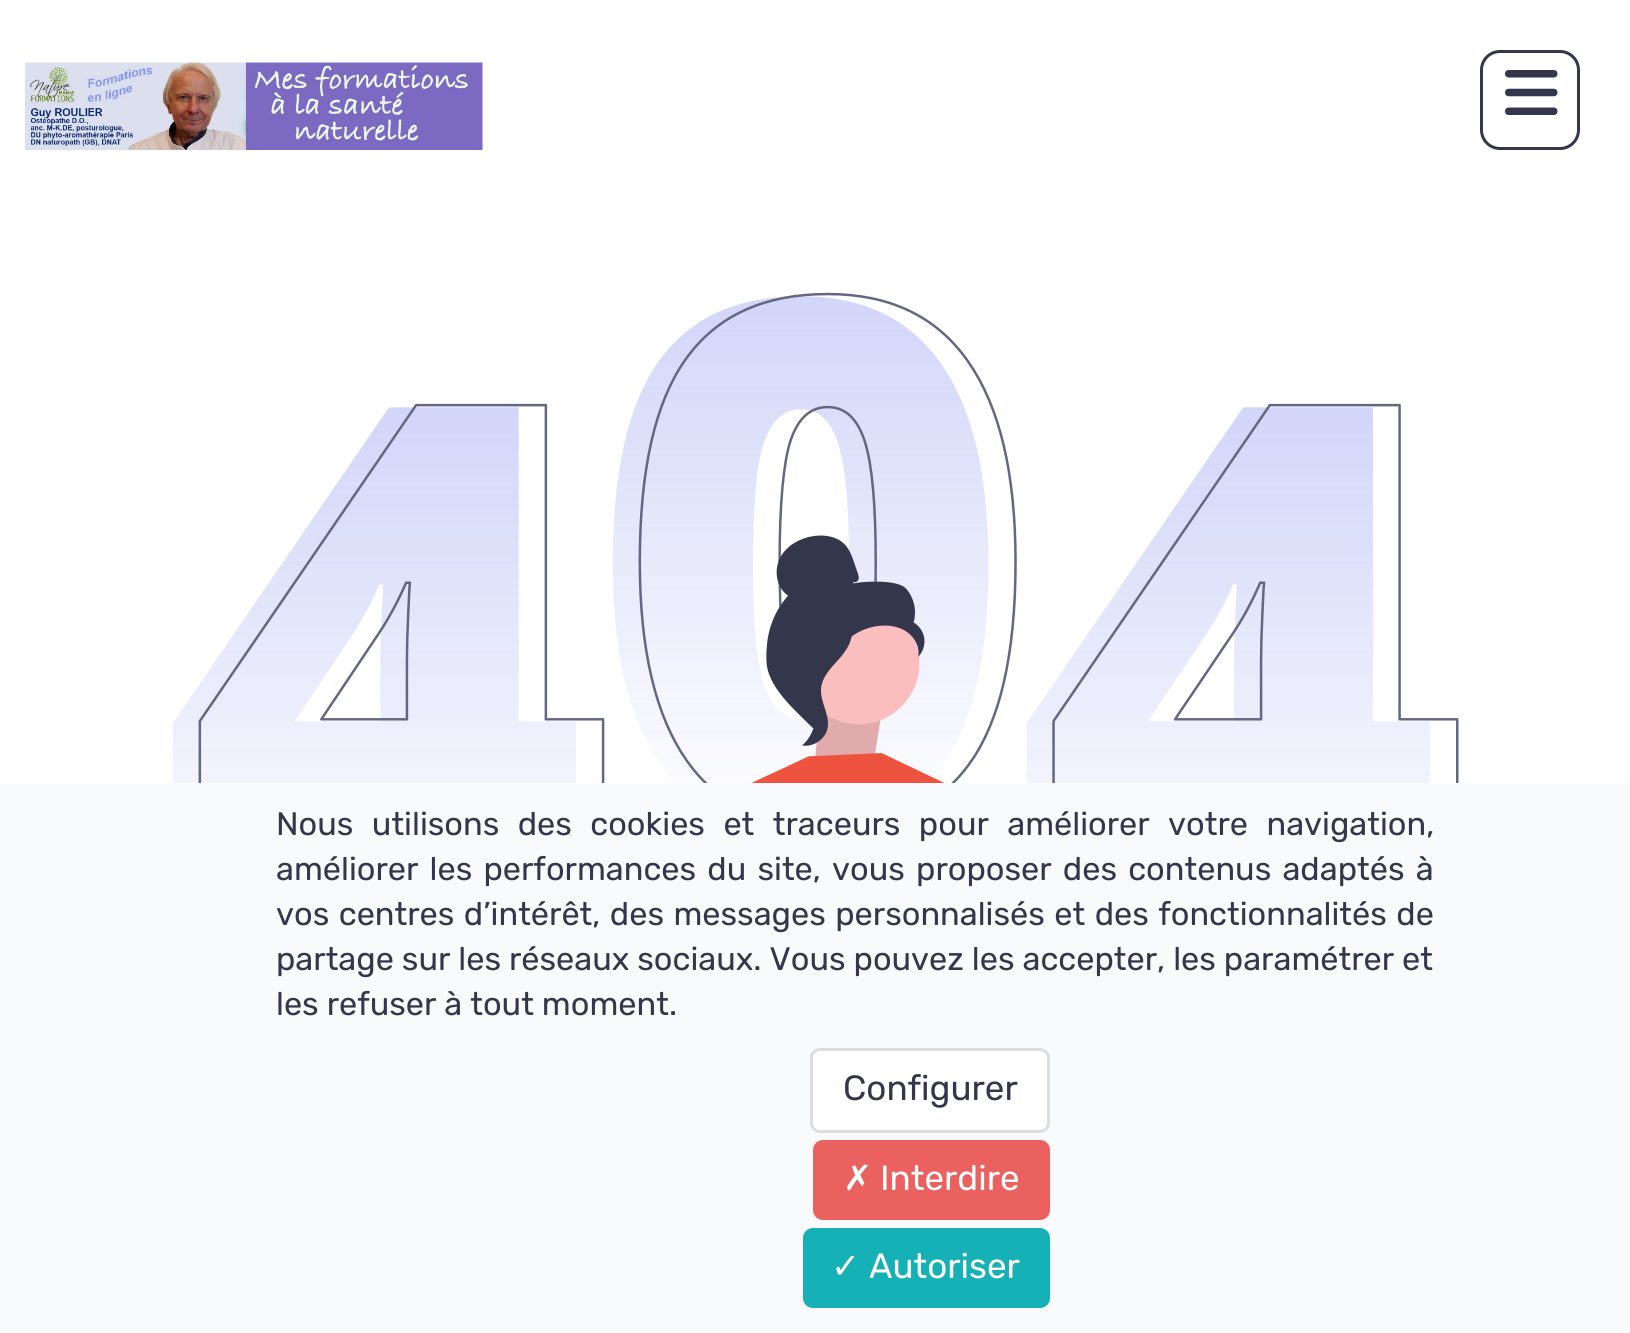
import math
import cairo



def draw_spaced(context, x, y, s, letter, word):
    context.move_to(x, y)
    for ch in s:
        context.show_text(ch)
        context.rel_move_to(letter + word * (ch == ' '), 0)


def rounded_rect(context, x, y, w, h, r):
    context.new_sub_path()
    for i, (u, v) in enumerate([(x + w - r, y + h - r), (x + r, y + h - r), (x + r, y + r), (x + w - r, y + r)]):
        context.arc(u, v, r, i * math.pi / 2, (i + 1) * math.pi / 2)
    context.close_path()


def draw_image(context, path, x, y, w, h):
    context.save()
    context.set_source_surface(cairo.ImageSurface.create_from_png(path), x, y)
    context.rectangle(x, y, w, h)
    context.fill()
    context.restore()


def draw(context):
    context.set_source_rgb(1, 1, 1)
    context.paint()
    draw_image(context, "images/1.png", 25, 62, 458, 88)
    rounded_rect(context, 1481.5, 51.5, 97, 97, 18.5)
    context.set_source_rgb(52 / 255, 54 / 255, 75 / 255)
    context.set_line_width(3)
    context.stroke()
    draw_image(context, "images/2.png", 1505, 70, 53, 45)
    draw_image(context, "images/3.png", 172, 292, 1287, 491)
    context.set_source_rgb(249 / 255, 250 / 255, 251 / 255)
    context.rectangle(0, 783, 1630, 550)
    context.fill()
    context.set_source_rgb(1, 1, 1)
    rounded_rect(context, 811.5, 1049.5, 237, 82, 8.5)
    context.fill_preserve()
    context.set_source_rgb(221 / 255, 221 / 255, 225 / 255)
    context.stroke()
    context.set_source_rgb(235 / 255, 97 / 255, 95 / 255)
    rounded_rect(context, 813, 1140, 237, 80, 10)
    context.fill()
    context.set_source_rgb(21 / 255, 177 / 255, 182 / 255)
    rounded_rect(context, 803, 1228, 247, 80, 10)
    context.fill()
    context.select_font_face("Rubik")
    context.set_font_size(32.5)
    context.set_source_rgb(52 / 255, 54 / 255, 75 / 255)
    draw_spaced(context, 276, 835, "Nous utilisons des cookies et traceurs pour améliorer votre navigation,", 0, 10.5)
    draw_spaced(context, 276, 880, "améliorer les performances du site, vous proposer des contenus adaptés à", 0, 3.25)
    draw_spaced(context, 276, 925, "vos centres d’intérêt, des messages personnalisés et des fonctionnalités de", 0, 1.5)
    context.move_to(276, 970)
    context.show_text("partage sur les réseaux sociaux. Vous pouvez les accepter, les paramétrer et")
    context.move_to(276, 1015)
    context.show_text("les refuser à tout moment.")
    context.set_font_size(35)
    context.move_to(843, 1100)
    context.show_text("Configurer")
    context.select_font_face("DejaVu Sans")
    context.set_source_rgb(1, 1, 1)
    context.move_to(843, 1190)
    context.show_text("✗")
    context.select_font_face("Rubik")
    context.move_to(880, 1190)
    context.show_text("Interdire")
    context.select_font_face("DejaVu Sans")
    context.move_to(831, 1278)
    context.show_text("✓")
    context.select_font_face("Rubik")
    context.move_to(869, 1278)
    context.show_text("Autoriser")


surface = cairo.ImageSurface(cairo.Format.RGB24, 1630, 1333)
context = cairo.Context(surface)
options = cairo.FontOptions()
options.set_hint_metrics(cairo.HintMetrics.OFF)
options.set_hint_style(cairo.HintStyle.NONE)
context.set_font_options(options)
context.set_miter_limit(4)
draw(context)
surface.write_to_png("out.png")
